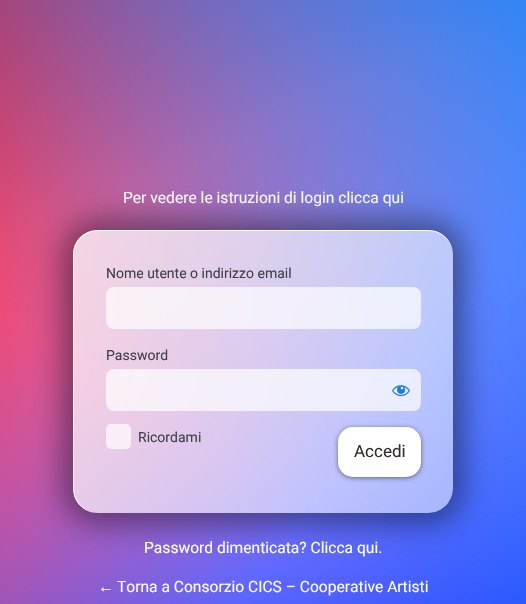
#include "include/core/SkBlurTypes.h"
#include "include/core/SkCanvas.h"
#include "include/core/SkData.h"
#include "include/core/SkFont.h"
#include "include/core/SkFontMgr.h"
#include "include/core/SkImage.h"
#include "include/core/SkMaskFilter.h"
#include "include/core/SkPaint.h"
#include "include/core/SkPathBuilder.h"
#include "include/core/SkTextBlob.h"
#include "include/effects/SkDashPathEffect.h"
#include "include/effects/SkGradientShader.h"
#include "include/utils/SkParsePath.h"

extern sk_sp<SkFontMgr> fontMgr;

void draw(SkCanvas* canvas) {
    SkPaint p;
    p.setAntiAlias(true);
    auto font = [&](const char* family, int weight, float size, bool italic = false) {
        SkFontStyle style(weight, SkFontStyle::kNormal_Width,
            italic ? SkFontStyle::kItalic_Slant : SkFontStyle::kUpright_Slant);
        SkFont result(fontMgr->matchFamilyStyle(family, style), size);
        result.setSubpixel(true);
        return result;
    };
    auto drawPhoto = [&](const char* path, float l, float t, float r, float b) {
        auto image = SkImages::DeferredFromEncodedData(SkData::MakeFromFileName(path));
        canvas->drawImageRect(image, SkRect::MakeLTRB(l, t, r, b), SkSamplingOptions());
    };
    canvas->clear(0xFFFFFFFF);
    {
        const SkColor colors[] = {0xFF3053FF, 0xFFF0A8FF};
        const float stops[] = {0, 0.71f};
        const SkPoint ends[] = {{419, 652}, {107, -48}};
        p.setShader(SkGradientShader::MakeLinear(ends, colors, stops, 2, SkTileMode::kClamp));
        p.setAlpha(255);
    }
    canvas->drawRect(SkRect::MakeLTRB(0, 0, 526, 604), p);
    {
        const SkColor colors[] = {0xCCFF0000, 0x00FF0000};
        const float stops[] = {0, 0.71f};
        const SkPoint ends[] = {{-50, 66}, {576, 538}};
        p.setShader(SkGradientShader::MakeLinear(ends, colors, stops, 2, SkTileMode::kClamp));
        p.setAlpha(255);
    }
    canvas->drawRect(SkRect::MakeLTRB(0, 0, 526, 604), p);
    {
        const SkColor colors[] = {0xCC0084FF, 0x000084FF};
        const float stops[] = {0, 0.71f};
        const SkPoint ends[] = {{503, -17}, {23, 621}};
        p.setShader(SkGradientShader::MakeLinear(ends, colors, stops, 2, SkTileMode::kClamp));
        p.setAlpha(255);
    }
    canvas->drawRect(SkRect::MakeLTRB(0, 0, 526, 604), p);
    auto font1 = font("Roboto", 400, 15.6f);
    p.setShader(nullptr);
    p.setColor(0xFFFFFFFF);
    canvas->drawString("Per vedere le istruzioni di login clicca qui", 123, 203, font1, p);
    canvas->save();
    canvas->clipPath(SkPathBuilder(SkPathFillType::kEvenOdd).moveTo(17, 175).lineTo(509, 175).lineTo(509, 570).lineTo(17, 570).close().moveTo(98, 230).lineTo(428, 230).cubicTo(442, 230, 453, 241, 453, 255).lineTo(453, 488).cubicTo(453, 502, 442, 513, 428, 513).lineTo(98, 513).cubicTo(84, 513, 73, 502, 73, 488).lineTo(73, 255).cubicTo(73, 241, 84, 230, 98, 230).close().detach(), true);
    p.setColor(0x6E000000);
    p.setMaskFilter(SkMaskFilter::MakeBlur(kNormal_SkBlurStyle, 15));
    canvas->drawRoundRect(SkRect::MakeLTRB(63, 221, 463, 524), 35, 35, p);
    p.setMaskFilter(nullptr);
    canvas->restore();
    canvas->save();
    canvas->clipPath(SkPathBuilder().moveTo(98, 230).lineTo(428, 230).cubicTo(442, 230, 453, 241, 453, 255).lineTo(453, 488).cubicTo(453, 502, 442, 513, 428, 513).lineTo(98, 513).cubicTo(84, 513, 73, 502, 73, 488).lineTo(73, 255).cubicTo(73, 241, 84, 230, 98, 230).close().detach(), true);
    {
        const SkColor colors[] = {0xBFFFFFFF, 0x80FFFFFF};
        const float stops[] = {0, 1};
        const SkPoint ends[] = {{60, 255}, {467, 489}};
        p.setShader(SkGradientShader::MakeLinear(ends, colors, stops, 2, SkTileMode::kClamp));
        p.setAlpha(255);
    }
    canvas->drawPath(SkPathBuilder().moveTo(74, 231).lineTo(453, 231).lineTo(453, 488).cubicTo(453, 502, 442, 513, 428, 513).lineTo(74, 513).close().detach(), p);
    canvas->restore();
    p.setShader(nullptr);
    p.setColor(0xFFFFFFFF);
    canvas->drawPath(SkPathBuilder(SkPathFillType::kEvenOdd).moveTo(98, 230).lineTo(428, 230).cubicTo(442, 230, 453, 241, 453, 255).lineTo(453, 488).cubicTo(453, 502, 442, 513, 428, 513).lineTo(98, 513).cubicTo(84, 513, 73, 502, 73, 488).lineTo(73, 255).cubicTo(73, 241, 84, 230, 98, 230).close().moveTo(98, 231).lineTo(428, 231).cubicTo(442, 231, 453, 242, 453, 255).lineTo(453, 488).cubicTo(453, 502, 442, 513, 428, 513).lineTo(98, 513).cubicTo(85, 513, 74, 502, 74, 488).lineTo(74, 255).cubicTo(74, 242, 85, 231, 98, 231).close().detach(), p);
    auto font2 = font("Roboto", 400, 14);
    p.setColor(0xFF3C434A);
    canvas->drawString("Nome utente o indirizzo email", 106, 278, font2, p);
    p.setColor(0xB0FFFFFF);
    canvas->drawRoundRect(SkRect::MakeLTRB(106, 287, 421, 329), 8, 8, p);
    p.setColor(0xFF3C434A);
    canvas->drawString("Password", 106, 360, font2, p);
    p.setColor(0xB0FFFFFF);
    canvas->drawRoundRect(SkRect::MakeLTRB(106, 369, 421, 411), 8, 8, p);
    drawPhoto("media/1.png", 392, 385, 410, 397);
    canvas->drawRoundRect(SkRect::MakeLTRB(106, 424, 131, 449), 5, 5, p);
    p.setColor(0xFF3C434A);
    canvas->drawString("Ricordami", 138, 442, font2, p);
    p.setColor(0x7A000000);
    p.setMaskFilter(SkMaskFilter::MakeBlur(kNormal_SkBlurStyle, 2.5f));
    canvas->drawRoundRect(SkRect::MakeLTRB(338, 428, 421, 478), 15, 15, p);
    p.setMaskFilter(nullptr);
    p.setColor(0xFFFFFFFF);
    canvas->drawRoundRect(SkRect::MakeLTRB(338, 427, 421, 477), 15, 15, p);
    auto font3 = font("Roboto", 400, 17);
    p.setColor(0xFF312F2C);
    canvas->drawString("Accedi", 354, 457, font3, p);
    p.setColor(0xFFFFFFFF);
    canvas->drawString("Password dimenticata? Clicca qui.", 144, 553, font1, p);
    auto font4 = font("Liberation Sans", 400, 15.6f);
    canvas->drawString("←", 98, 592, font4, p);
    canvas->drawString("Torna a Consorzio CICS – Cooperative Artisti", 117, 592, font1, p);
}
